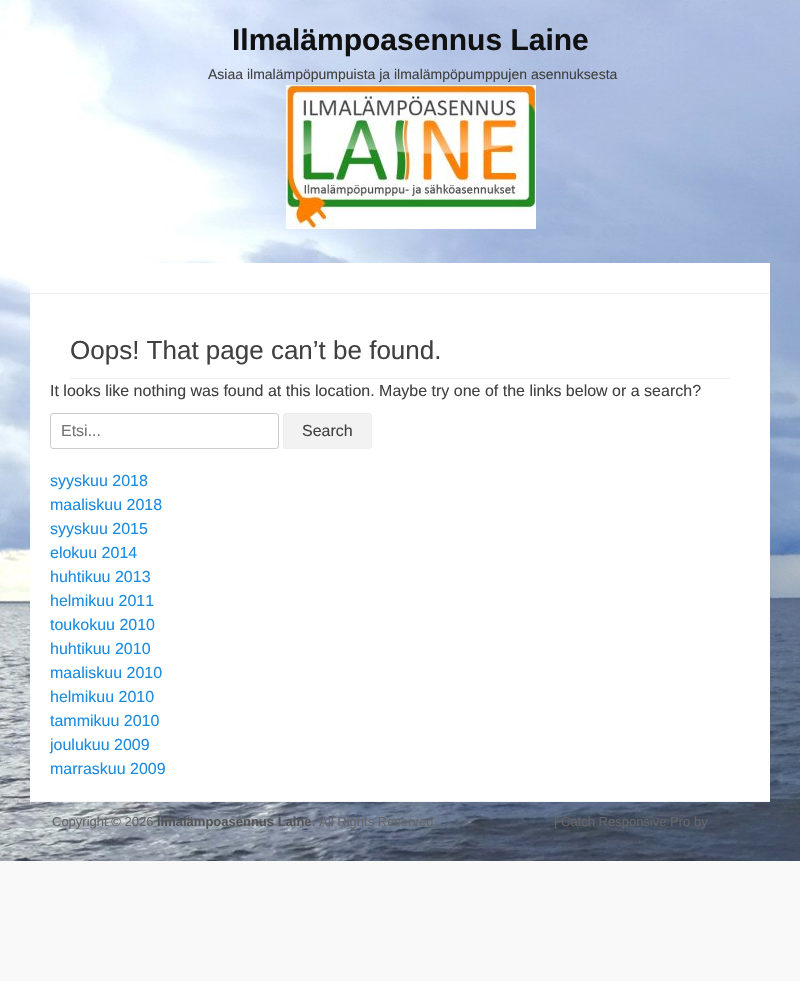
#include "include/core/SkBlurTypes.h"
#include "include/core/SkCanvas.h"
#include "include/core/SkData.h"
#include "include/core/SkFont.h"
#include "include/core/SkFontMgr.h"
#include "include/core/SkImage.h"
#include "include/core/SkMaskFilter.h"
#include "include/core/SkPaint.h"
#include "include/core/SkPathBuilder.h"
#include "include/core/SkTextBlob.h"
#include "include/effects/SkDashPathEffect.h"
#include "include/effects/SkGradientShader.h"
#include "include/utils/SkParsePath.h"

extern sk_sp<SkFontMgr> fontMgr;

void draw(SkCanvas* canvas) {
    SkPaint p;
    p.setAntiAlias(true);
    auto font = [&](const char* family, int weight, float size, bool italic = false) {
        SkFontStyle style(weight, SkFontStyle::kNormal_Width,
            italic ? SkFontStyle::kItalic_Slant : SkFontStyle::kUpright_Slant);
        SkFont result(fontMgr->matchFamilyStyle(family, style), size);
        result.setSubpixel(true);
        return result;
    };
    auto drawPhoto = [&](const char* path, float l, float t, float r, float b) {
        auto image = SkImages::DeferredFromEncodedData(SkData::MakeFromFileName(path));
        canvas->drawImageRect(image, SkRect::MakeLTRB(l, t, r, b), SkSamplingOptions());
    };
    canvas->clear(0xFFF9F9F9);
    drawPhoto("media/1.png", 0, 0, 800, 861);
    auto font1 = font("Liberation Sans", 700, 30);
    p.setColor(0xFF111111);
    canvas->drawString("Ilmalämpoasennus Laine", 232, 50, font1, p);
    auto font2 = font("Liberation Sans", 400, 14);
    p.setColor(0xFF404040);
    canvas->drawString("Asiaa ilmalämpöpumpuista ja ilmalämpöpumppujen asennuksesta", 208, 79, font2, p);
    drawPhoto("media/2.png", 286, 85, 536, 229);
    {
        const struct { float l, t, r, b; SkColor color; } items[] = {
            {30, 263, 770, 293, 0xFFFFFFFF},
            {30, 293, 770, 294, 0xFFEEEEEE},
            {30, 294, 770, 801, 0xFFFFFFFF},
            {70, 378, 730, 379, 0xFFEEEEEE},
        };
        for (auto [l, t, r, b, color] : items) {
            p.setColor(color);
            canvas->drawRect(SkRect::MakeLTRB(l, t, r, b), p);
        }
    }
    auto font3 = font("Liberation Sans", 400, 26);
    p.setColor(0xFF404040);
    canvas->drawString("Oops! That page can’t be found.", 70, 359, font3, p);
    auto font4 = font("Liberation Sans", 400, 16);
    canvas->drawString("It looks like nothing was found at this location. Maybe try one of the links below or a search?", 50, 396, font4, p);
    p.setStyle(SkPaint::kStroke_Style);
    p.setStrokeWidth(1);
    p.setColor(0xFFCCCCCC);
    canvas->drawRoundRect(SkRect::MakeLTRB(50.5f, 413.5f, 278.5f, 448.5f), 2.5f, 2.5f, p);
    p.setStyle(SkPaint::kFill_Style);
    p.setColor(0xFF757575);
    canvas->drawString("Etsi...", 61, 436, font4, p);
    p.setColor(0xFFF2F2F2);
    canvas->drawRoundRect(SkRect::MakeLTRB(283.5f, 413.5f, 371.5f, 448.5f), 2.5f, 2.5f, p);
    p.setStyle(SkPaint::kStroke_Style);
    p.setColor(0xFFEEEEEE);
    canvas->drawRoundRect(SkRect::MakeLTRB(283.5f, 413.5f, 371.5f, 448.5f), 2.5f, 2.5f, p);
    p.setStyle(SkPaint::kFill_Style);
    p.setColor(0xFF404040);
    canvas->drawString("Search", 302, 436, font4, p);
    p.setColor(0xFF1B8BE0);
    {
        const struct { const char* s; float x, y; } items[] = {
            {"syyskuu 2018", 50, 486},
            {"maaliskuu 2018", 50, 510},
            {"syyskuu 2015", 50, 534},
            {"elokuu 2014", 50, 558},
            {"huhtikuu 2013", 50, 582},
            {"helmikuu 2011", 50, 606},
            {"toukokuu 2010", 50, 630},
            {"huhtikuu 2010", 50, 654},
            {"maaliskuu 2010", 50, 678},
            {"helmikuu 2010", 50, 702},
            {"tammikuu 2010", 50, 726},
            {"joulukuu 2009", 50, 750},
            {"marraskuu 2009", 50, 774},
        };
        for (auto [s, x, y] : items) {
            canvas->drawString(s, x, y, font4, p);
        }
    }
    p.setColor(0xFFF4F4F4);
    canvas->drawRect(SkRect::MakeLTRB(30, 801, 770, 802), p);
    auto font5 = font("Liberation Sans", 400, 13);
    p.setColor(0xFF666666);
    canvas->drawString("Copyright © 2026", 52, 826, font5, p);
    auto font6 = font("Liberation Sans", 700, 13);
    p.setColor(0xFF555555);
    canvas->drawString("Ilmalämpoasennus Laine", 157, 826, font6, p);
    p.setColor(0xFF666666);
    canvas->drawString(". All Rights Reserved", 312, 826, font5, p);
    canvas->drawString("| Catch Responsive Pro by", 554, 826, font5, p);
}
